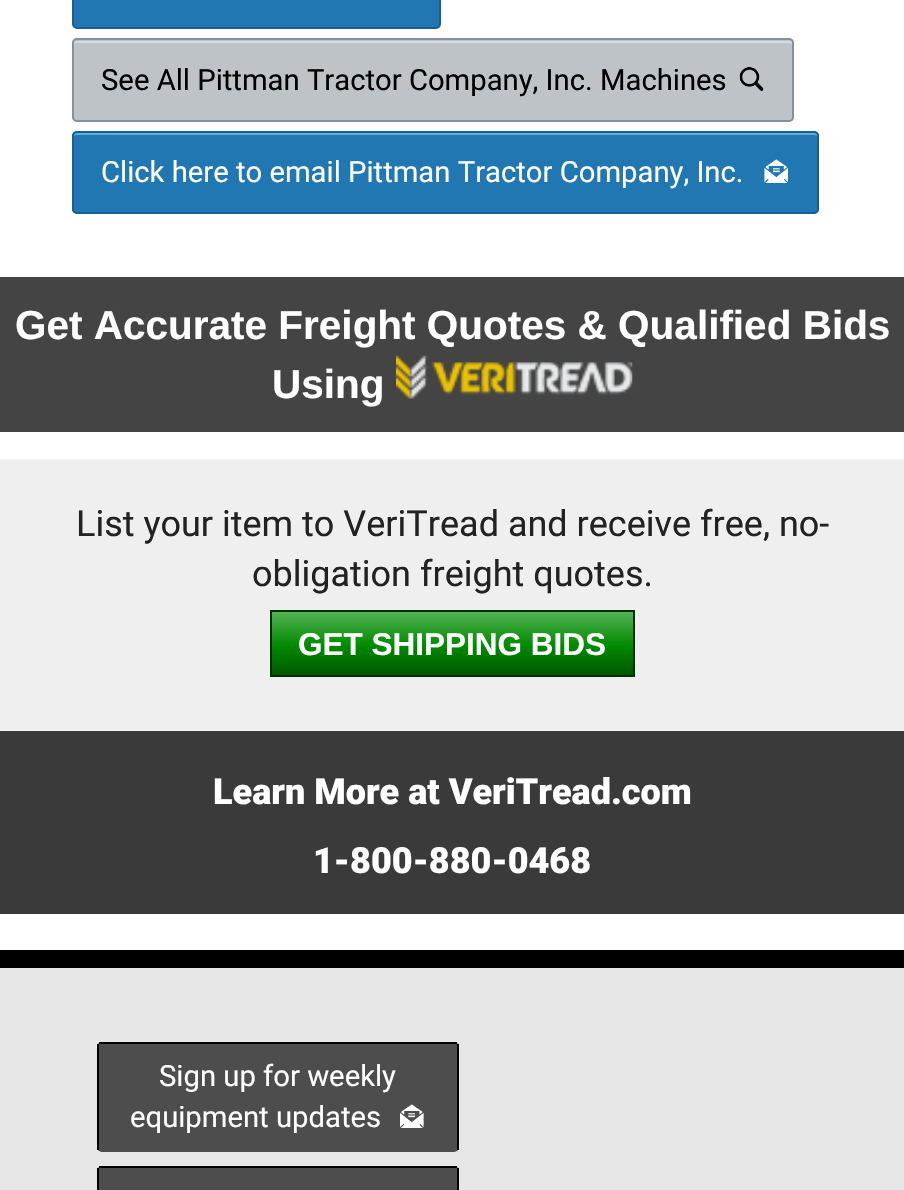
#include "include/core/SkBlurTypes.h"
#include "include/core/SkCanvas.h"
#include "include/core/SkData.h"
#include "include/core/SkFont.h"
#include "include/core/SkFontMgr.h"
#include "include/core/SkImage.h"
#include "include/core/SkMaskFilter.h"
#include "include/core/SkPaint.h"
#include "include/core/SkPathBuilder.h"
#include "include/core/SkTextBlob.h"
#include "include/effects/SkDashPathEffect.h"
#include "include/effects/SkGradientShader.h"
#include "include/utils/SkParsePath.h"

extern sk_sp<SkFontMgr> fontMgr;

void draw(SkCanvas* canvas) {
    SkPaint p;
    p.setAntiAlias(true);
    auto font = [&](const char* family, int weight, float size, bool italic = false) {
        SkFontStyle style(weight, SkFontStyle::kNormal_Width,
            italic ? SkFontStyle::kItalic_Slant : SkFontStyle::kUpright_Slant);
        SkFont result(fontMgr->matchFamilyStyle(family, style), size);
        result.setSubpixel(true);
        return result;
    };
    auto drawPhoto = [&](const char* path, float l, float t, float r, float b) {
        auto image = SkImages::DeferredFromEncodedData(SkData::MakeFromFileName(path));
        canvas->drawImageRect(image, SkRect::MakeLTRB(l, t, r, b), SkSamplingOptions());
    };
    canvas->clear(0xFFFFFFFF);
    p.setColor(0xFF2077B2);
    canvas->drawRoundRect(SkRect::MakeLTRB(73, -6, 440, 28), 4, 4, p);
    p.setStyle(SkPaint::kStroke_Style);
    p.setStrokeWidth(2);
    p.setColor(0xFF196090);
    canvas->drawRoundRect(SkRect::MakeLTRB(73, -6, 440, 28), 4, 4, p);
    p.setStyle(SkPaint::kFill_Style);
    p.setColor(0xFFBDC3C7);
    canvas->drawRoundRect(SkRect::MakeLTRB(72, 38, 794, 122), 5, 5, p);
    p.setColor(0xFFD9DCDE);
    canvas->drawPath(SkPathBuilder().moveTo(76, 43).lineTo(790, 43).cubicTo(791, 43, 792, 44, 792, 45).lineTo(792, 42).lineTo(790, 41).lineTo(75, 41).cubicTo(74, 42, 74, 44, 74, 45).cubicTo(74, 44, 75, 43, 76, 43).close().detach(), p);
    p.setStyle(SkPaint::kStroke_Style);
    p.setColor(0xFF869198);
    canvas->drawRoundRect(SkRect::MakeLTRB(73, 39, 793, 121), 4, 4, p);
    auto font1 = font("Roboto", 400, 29.25f);
    p.setStyle(SkPaint::kFill_Style);
    p.setColor(0xFF000000);
    canvas->drawString("See All Pittman Tractor Company, Inc. Machines", 101, 90, font1, p);
    drawPhoto("media/1.png", 739, 67, 764, 91);
    p.setColor(0xFF2077B2);
    canvas->drawRoundRect(SkRect::MakeLTRB(72, 131, 819, 214), 5, 5, p);
    p.setColor(0xFF5FAEE3);
    canvas->drawPath(SkPathBuilder().moveTo(76, 135).lineTo(814, 135).cubicTo(816, 135, 817, 136, 817, 137).lineTo(817, 134).lineTo(815, 133).lineTo(76, 133).cubicTo(74, 133, 74, 135, 74, 137).cubicTo(74, 136, 75, 135, 76, 135).close().detach(), p);
    p.setStyle(SkPaint::kStroke_Style);
    p.setColor(0xFF196090);
    canvas->drawRoundRect(SkRect::MakeLTRB(73, 132, 818, 213), 4, 4, p);
    p.setStyle(SkPaint::kFill_Style);
    p.setColor(0xFFFFFFFF);
    canvas->drawString("Click here to email Pittman Tractor Company, Inc.", 101, 182, font1, p);
    drawPhoto("media/2.png", 764, 159, 788, 183);
    p.setColor(0xFF444444);
    canvas->drawRect(SkRect::MakeLTRB(0, 277, 904, 432), p);
    auto font2 = font("Liberation Sans", 700, 40.5f);
    p.setColor(0xFFFFFFFF);
    canvas->drawString("Get Accurate Freight Quotes & Qualified Bids", 15, 339, font2, p);
    canvas->drawString("Using", 272, 398, font2, p);
    drawPhoto("media/3.png", 396, 355, 633, 399);
    p.setColor(0xFFEFEFEF);
    canvas->drawRect(SkRect::MakeLTRB(0, 459, 904, 731), p);
    auto font3 = font("Roboto", 400, 36);
    p.setColor(0xFF222222);
    canvas->drawString("List your item to VeriTread and receive free, no-", 76, 536, font3, p);
    canvas->drawString("obligation freight quotes.", 252, 586, font3, p);
    {
        const SkColor colors[] = {0xFF52B152, 0xFF008A00, 0xFF005700};
        const float stops[] = {0.01f, 0.54f, 1};
        const SkPoint ends[] = {{452, 612}, {452, 675}};
        p.setShader(SkGradientShader::MakeLinear(ends, colors, stops, 3, SkTileMode::kClamp));
        p.setAlpha(255);
    }
    canvas->drawRect(SkRect::MakeLTRB(272, 612, 633, 675), p);
    p.setStyle(SkPaint::kStroke_Style);
    p.setShader(nullptr);
    p.setColor(0xFF003300);
    canvas->drawRect(SkRect::MakeLTRB(271, 611, 634, 676), p);
    auto font4 = font("Liberation Sans", 700, 31.5f);
    p.setStyle(SkPaint::kFill_Style);
    p.setColor(0xFFFFFFFF);
    canvas->drawString("GET SHIPPING BIDS", 298, 655, font4, p);
    p.setColor(0xFF3A3A3A);
    canvas->drawRect(SkRect::MakeLTRB(0, 731, 904, 914), p);
    auto font5 = font("Roboto", 900, 36);
    p.setColor(0xFFFFFFFF);
    canvas->drawString("Learn More at VeriTread.com", 213, 804, font5, p);
    canvas->drawString("1-800-880-0468", 313, 873, font5, p);
    p.setColor(0xFFE6E6E6);
    canvas->drawRect(SkRect::MakeLTRB(0, 968, 904, 1190), p);
    p.setColor(0xFF000000);
    canvas->drawRect(SkRect::MakeLTRB(0, 950, 904, 968), p);
    p.setColor(0xFF4D4D4D);
    canvas->drawRoundRect(SkRect::MakeLTRB(97, 1042, 459, 1152), 5, 5, p);
    {
        const struct { float l, t, r, b; SkColor color; } items[] = {
            {99, 1042, 457, 1044, 0xFF000000},
            {457, 1044, 459, 1150, 0xFF000000},
            {97, 1044, 99, 1150, 0xFF000000},
        };
        for (auto [l, t, r, b, color] : items) {
            p.setColor(color);
            canvas->drawRect(SkRect::MakeLTRB(l, t, r, b), p);
        }
    }
    p.setColor(0xFFFFFFFF);
    canvas->drawString("Sign up for weekly", 159, 1086, font1, p);
    canvas->drawString("equipment updates", 130, 1127, font1, p);
    drawPhoto("media/4.png", 400, 1104, 424, 1128);
    p.setColor(0xFF4D4D4D);
    canvas->drawRoundRect(SkRect::MakeLTRB(97, 1166, 459, 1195), 5, 5, p);
    {
        const struct { float l, t, r, b; SkColor color; } items[] = {
            {99, 1166, 457, 1168, 0xFF000000},
            {457, 1168, 459, 1190, 0xFF000000},
            {97, 1168, 99, 1190, 0xFF000000},
        };
        for (auto [l, t, r, b, color] : items) {
            p.setColor(color);
            canvas->drawRect(SkRect::MakeLTRB(l, t, r, b), p);
        }
    }
}
